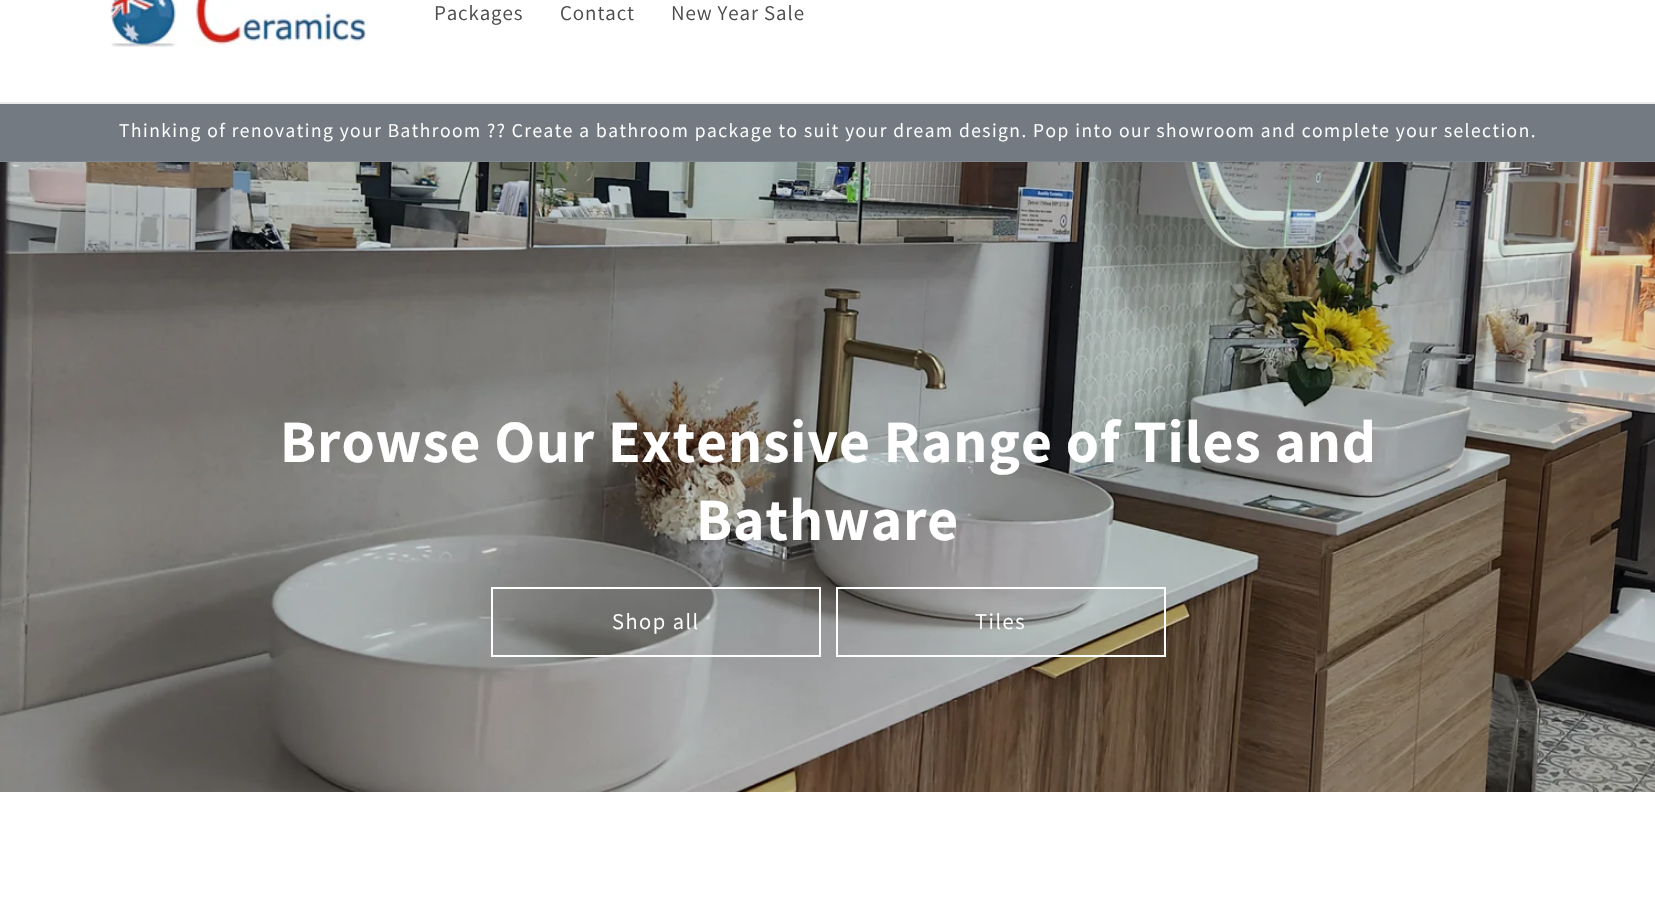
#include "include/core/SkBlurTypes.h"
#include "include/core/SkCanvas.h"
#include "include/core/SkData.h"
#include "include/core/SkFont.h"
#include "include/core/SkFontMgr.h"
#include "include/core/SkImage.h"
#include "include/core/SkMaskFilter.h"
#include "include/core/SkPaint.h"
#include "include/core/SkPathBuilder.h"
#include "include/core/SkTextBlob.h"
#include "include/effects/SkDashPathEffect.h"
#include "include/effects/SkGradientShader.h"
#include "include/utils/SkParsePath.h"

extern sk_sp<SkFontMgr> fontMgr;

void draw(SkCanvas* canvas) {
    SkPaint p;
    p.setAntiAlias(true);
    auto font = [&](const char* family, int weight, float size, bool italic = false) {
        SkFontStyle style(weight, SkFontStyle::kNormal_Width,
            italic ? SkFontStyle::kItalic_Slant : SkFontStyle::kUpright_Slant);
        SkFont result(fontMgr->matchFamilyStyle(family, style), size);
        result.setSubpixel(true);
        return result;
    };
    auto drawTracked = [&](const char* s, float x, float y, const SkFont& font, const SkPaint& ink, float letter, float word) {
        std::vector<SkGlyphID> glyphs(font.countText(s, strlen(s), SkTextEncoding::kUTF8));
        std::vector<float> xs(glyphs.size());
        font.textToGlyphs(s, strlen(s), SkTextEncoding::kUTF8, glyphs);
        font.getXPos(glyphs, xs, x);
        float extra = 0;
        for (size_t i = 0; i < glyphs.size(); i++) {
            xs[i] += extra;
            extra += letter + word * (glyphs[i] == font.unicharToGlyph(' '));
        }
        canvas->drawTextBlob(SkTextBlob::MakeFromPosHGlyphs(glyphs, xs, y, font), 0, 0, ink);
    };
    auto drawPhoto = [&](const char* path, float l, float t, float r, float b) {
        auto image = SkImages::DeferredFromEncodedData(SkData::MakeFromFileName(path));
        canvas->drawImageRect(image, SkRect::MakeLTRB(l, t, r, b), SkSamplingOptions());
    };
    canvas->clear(0xFFFFFFFF);
    p.setColor(0xFFECECEC);
    canvas->drawRect(SkRect::MakeLTRB(0, 102, 1655, 104), p);
    drawPhoto("media/1.png", 110, 0, 369, 47);
    auto font1 = font("Assistant", 400, 21);
    p.setColor(0xFF4D4D4D);
    {
        const struct { const char* s; float x, y; } items[] = {
            {"Packages", 434, 20},
            {"Contact", 560, 20},
            {"New Year Sale", 671, 20},
        };
        for (auto [s, x, y] : items) {
            drawTracked(s, x, y, font1, p, 0.9f, 0);
        }
    }
    p.setColor(0xFF737A81);
    canvas->drawRect(SkRect::MakeLTRB(0, 104, 1655, 161), p);
    p.setColor(0xFF7E858B);
    canvas->drawRect(SkRect::MakeLTRB(0, 161, 1655, 162), p);
    auto font2 = font("Assistant", 400, 19.5f);
    p.setColor(0xFFFFFFFF);
    drawTracked("Thinking of renovating your Bathroom ?\077 Create a bathroom package to suit your dream design. Pop into our showroom and complete your selection.", 119, 137, font2, p, 1.5f, 0);
    drawPhoto("media/2.png", 0, 162, 1655, 792);
    auto font3 = font("Assistant", 700, 60);
    drawTracked("Browse Our Extensive Range of Tiles and", 280, 462, font3, p, 0.9f, 0);
    drawTracked("Bathware", 696, 540, font3, p, 0.9f, 0);
    p.setStyle(SkPaint::kStroke_Style);
    p.setStrokeWidth(2);
    canvas->drawRect(SkRect::MakeLTRB(492, 588, 820, 656), p);
    auto font4 = font("Assistant", 400, 22.5f);
    p.setStyle(SkPaint::kFill_Style);
    drawTracked("Shop all", 612, 629, font4, p, 1.5f, 0);
    p.setStyle(SkPaint::kStroke_Style);
    canvas->drawRect(SkRect::MakeLTRB(837, 588, 1165, 656), p);
    p.setStyle(SkPaint::kFill_Style);
    drawTracked("Tiles", 975, 629, font4, p, 1.5f, 0);
}
